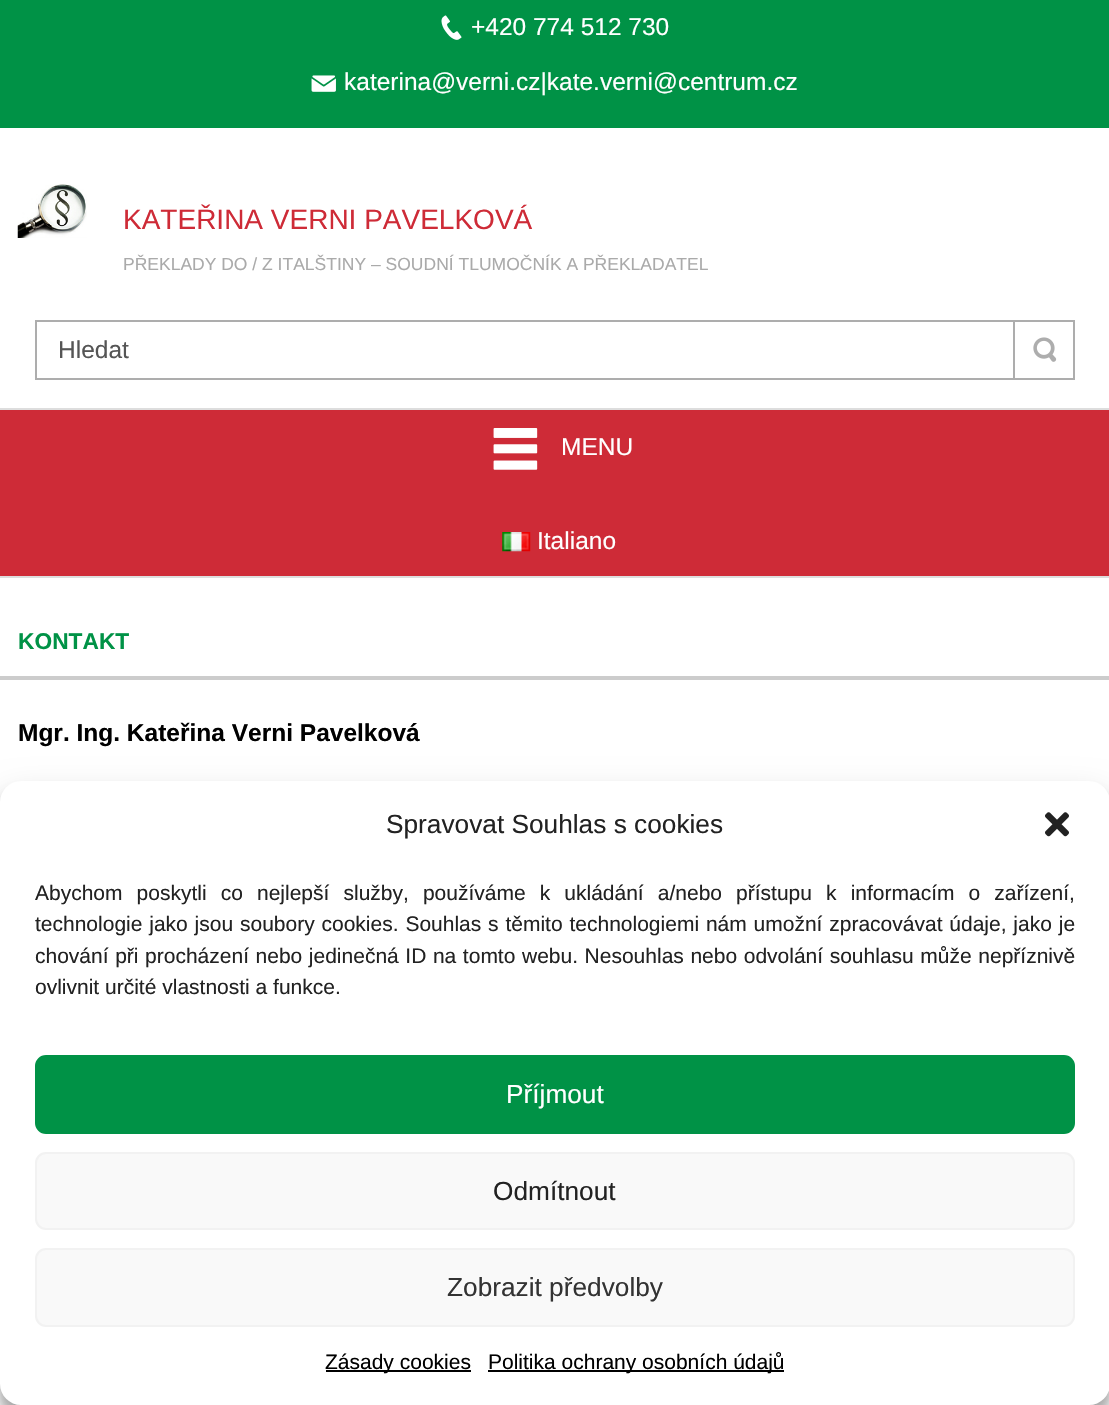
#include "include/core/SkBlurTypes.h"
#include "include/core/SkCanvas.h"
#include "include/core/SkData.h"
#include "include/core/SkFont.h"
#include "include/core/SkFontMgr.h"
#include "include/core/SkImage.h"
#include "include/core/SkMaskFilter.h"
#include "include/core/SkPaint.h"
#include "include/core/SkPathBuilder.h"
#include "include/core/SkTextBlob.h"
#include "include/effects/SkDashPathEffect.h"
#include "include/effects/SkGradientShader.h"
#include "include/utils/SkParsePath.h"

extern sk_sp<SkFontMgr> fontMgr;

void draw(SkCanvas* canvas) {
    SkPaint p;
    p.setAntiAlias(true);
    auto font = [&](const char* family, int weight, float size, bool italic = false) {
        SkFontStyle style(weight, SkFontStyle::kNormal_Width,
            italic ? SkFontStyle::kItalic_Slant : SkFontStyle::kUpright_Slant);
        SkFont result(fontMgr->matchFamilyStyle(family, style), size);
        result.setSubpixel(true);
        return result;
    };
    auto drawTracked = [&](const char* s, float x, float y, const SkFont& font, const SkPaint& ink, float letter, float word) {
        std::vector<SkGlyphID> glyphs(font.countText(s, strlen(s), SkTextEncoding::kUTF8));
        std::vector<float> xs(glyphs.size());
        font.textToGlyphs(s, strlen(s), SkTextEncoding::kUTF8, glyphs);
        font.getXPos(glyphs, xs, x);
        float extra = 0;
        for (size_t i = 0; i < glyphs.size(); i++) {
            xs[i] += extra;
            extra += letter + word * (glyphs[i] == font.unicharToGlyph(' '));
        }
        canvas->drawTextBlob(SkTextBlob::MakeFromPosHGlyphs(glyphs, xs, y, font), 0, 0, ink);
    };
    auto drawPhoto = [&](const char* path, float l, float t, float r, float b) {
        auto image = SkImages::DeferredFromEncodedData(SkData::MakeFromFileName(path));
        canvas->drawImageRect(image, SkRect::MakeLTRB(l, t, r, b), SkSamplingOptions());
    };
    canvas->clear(0xFFFFFFFF);
    p.setColor(0xFF009246);
    canvas->drawRect(SkRect::MakeLTRB(0, 0, 1109, 128), p);
    drawPhoto("media/1.png", 441, 15, 462, 40);
    auto font1 = font("Liberation Sans", 400, 24.5f);
    p.setColor(0xFFFFFFFF);
    canvas->drawString("+420 774 512 730", 471, 35, font1, p);
    drawPhoto("media/2.png", 311, 75, 336, 92);
    canvas->drawString("katerina@verni.cz|kate.verni@centrum.cz", 344, 90, font1, p);
    drawPhoto("media/3.png", 17, 184, 87, 238);
    auto font2 = font("Liberation Sans", 400, 28);
    p.setColor(0xFFCE2B37);
    canvas->drawString("KATEŘINA VERNI PAVELKOVÁ", 123, 229, font2, p);
    auto font3 = font("Liberation Sans", 400, 17.5f);
    p.setColor(0xFFAAAAAA);
    canvas->drawString("PŘEKLADY DO / Z ITALŠTINY – SOUDNÍ TLUMOČNÍK A PŘEKLADATEL", 123, 270, font3, p);
    p.setStyle(SkPaint::kStroke_Style);
    p.setStrokeWidth(2);
    p.setColor(0xFFADADAD);
    canvas->drawRect(SkRect::MakeLTRB(36, 321, 1074, 379), p);
    p.setStyle(SkPaint::kFill_Style);
    p.setColor(0xFF555555);
    canvas->drawString("Hledat", 58, 358, font1, p);
    p.setColor(0xFFADADAD);
    canvas->drawRect(SkRect::MakeLTRB(1013, 320, 1015, 380), p);
    drawPhoto("media/4.png", 1033, 337, 1057, 362);
    {
        const struct { float l, t, r, b; SkColor color; } items[] = {
            {0, 410, 1109, 576, 0xFFCE2B37},
            {0, 408, 1109, 410, 0xFFDDDDDD},
            {0, 576, 1109, 578, 0xFFDDDDDD},
        };
        for (auto [l, t, r, b, color] : items) {
            p.setColor(color);
            canvas->drawRect(SkRect::MakeLTRB(l, t, r, b), p);
        }
    }
    drawPhoto("media/5.png", 493, 428, 538, 470);
    p.setColor(0xFFFFFFFF);
    canvas->drawString("MENU", 561, 455, font1, p);
    drawPhoto("media/6.png", 502, 532, 531, 552);
    canvas->drawString("Italiano", 537, 549, font1, p);
    p.setColor(0xFFCCCCCC);
    canvas->drawRect(SkRect::MakeLTRB(0, 676, 1109, 680), p);
    auto font4 = font("Liberation Sans", 700, 22.75f);
    p.setColor(0xFF009246);
    canvas->drawString("KONTAKT", 18, 649, font4, p);
    auto font5 = font("Liberation Sans", 700, 24.5f);
    p.setColor(0xFF000000);
    canvas->drawString("Mgr. Ing. Kateřina Verni Pavelková", 18, 741, font5, p);
    p.setColor(0x3B000000);
    p.setMaskFilter(SkMaskFilter::MakeBlur(kNormal_SkBlurStyle, 5));
    canvas->drawRoundRect(SkRect::MakeLTRB(0, 791, 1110, 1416), 21, 21, p);
    p.setMaskFilter(nullptr);
    p.setColor(0x30000000);
    p.setMaskFilter(SkMaskFilter::MakeBlur(kNormal_SkBlurStyle, 17.5f));
    canvas->drawRoundRect(SkRect::MakeLTRB(0, 798, 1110, 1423), 21, 21, p);
    p.setMaskFilter(nullptr);
    p.setColor(0xFFFFFFFF);
    canvas->drawRoundRect(SkRect::MakeLTRB(0, 781, 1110, 1405), 21, 21, p);
    auto font6 = font("Liberation Sans", 400, 26.25f);
    p.setColor(0xFF222222);
    canvas->drawString("Spravovat Souhlas s cookies", 386, 833, font6, p);
    drawPhoto("media/7.png", 1045, 812, 1069, 837);
    auto font7 = font("Liberation Sans", 400, 21);
    drawTracked("Abychom poskytli co nejlepší služby, používáme k ukládání a/nebo přístupu k informacím o zařízení,", 35, 900, font7, p, 0, 8.25f);
    drawTracked("technologie jako jsou soubory cookies. Souhlas s těmito technologiemi nám umožní zpracovávat údaje, jako je", 35, 931, font7, p, 0, 1);
    drawTracked("chování při procházení nebo jedinečná ID na tomto webu. Nesouhlas nebo odvolání souhlasu může nepříznivě", 35, 963, font7, p, 0, 0.75f);
    canvas->drawString("ovlivnit určité vlastnosti a funkce.", 35, 994, font7, p);
    p.setColor(0xFF009246);
    canvas->drawRoundRect(SkRect::MakeLTRB(36, 1056, 1074, 1133), 10, 10, p);
    p.setStyle(SkPaint::kStroke_Style);
    canvas->drawRoundRect(SkRect::MakeLTRB(36, 1056, 1074, 1133), 10, 10, p);
    p.setStyle(SkPaint::kFill_Style);
    p.setColor(0xFFFFFFFF);
    canvas->drawString("Příjmout", 506, 1103, font6, p);
    p.setColor(0xFFF9F9F9);
    canvas->drawRoundRect(SkRect::MakeLTRB(36, 1153, 1074, 1229), 10, 10, p);
    p.setStyle(SkPaint::kStroke_Style);
    p.setColor(0xFFF2F2F2);
    canvas->drawRoundRect(SkRect::MakeLTRB(36, 1153, 1074, 1229), 10, 10, p);
    p.setStyle(SkPaint::kFill_Style);
    p.setColor(0xFF222222);
    canvas->drawString("Odmítnout", 493, 1200, font6, p);
    p.setColor(0xFFF9F9F9);
    canvas->drawRoundRect(SkRect::MakeLTRB(36, 1249, 1074, 1326), 10, 10, p);
    p.setStyle(SkPaint::kStroke_Style);
    p.setColor(0xFFF2F2F2);
    canvas->drawRoundRect(SkRect::MakeLTRB(36, 1249, 1074, 1326), 10, 10, p);
    p.setStyle(SkPaint::kFill_Style);
    p.setColor(0xFF333333);
    canvas->drawString("Zobrazit předvolby", 447, 1296, font6, p);
    p.setColor(0xFF000000);
    canvas->drawRect(SkRect::MakeLTRB(326, 1370, 471, 1372), p);
    canvas->drawString("Zásady cookies", 325, 1369, font7, p);
    canvas->drawRect(SkRect::MakeLTRB(488, 1370, 784, 1372), p);
    canvas->drawString("Politika ochrany osobních údajů", 488, 1369, font7, p);
}
